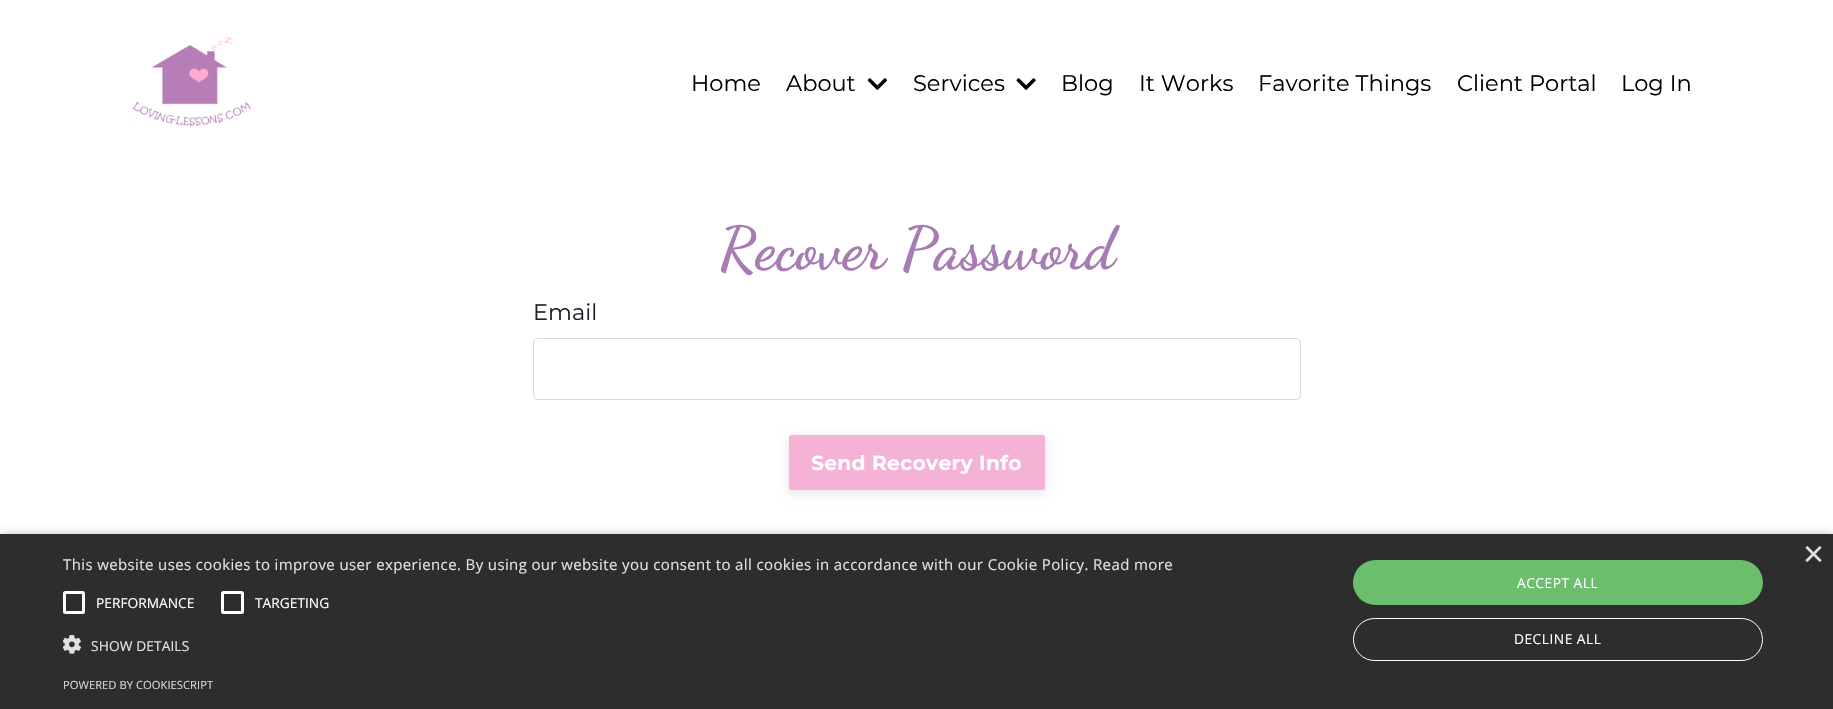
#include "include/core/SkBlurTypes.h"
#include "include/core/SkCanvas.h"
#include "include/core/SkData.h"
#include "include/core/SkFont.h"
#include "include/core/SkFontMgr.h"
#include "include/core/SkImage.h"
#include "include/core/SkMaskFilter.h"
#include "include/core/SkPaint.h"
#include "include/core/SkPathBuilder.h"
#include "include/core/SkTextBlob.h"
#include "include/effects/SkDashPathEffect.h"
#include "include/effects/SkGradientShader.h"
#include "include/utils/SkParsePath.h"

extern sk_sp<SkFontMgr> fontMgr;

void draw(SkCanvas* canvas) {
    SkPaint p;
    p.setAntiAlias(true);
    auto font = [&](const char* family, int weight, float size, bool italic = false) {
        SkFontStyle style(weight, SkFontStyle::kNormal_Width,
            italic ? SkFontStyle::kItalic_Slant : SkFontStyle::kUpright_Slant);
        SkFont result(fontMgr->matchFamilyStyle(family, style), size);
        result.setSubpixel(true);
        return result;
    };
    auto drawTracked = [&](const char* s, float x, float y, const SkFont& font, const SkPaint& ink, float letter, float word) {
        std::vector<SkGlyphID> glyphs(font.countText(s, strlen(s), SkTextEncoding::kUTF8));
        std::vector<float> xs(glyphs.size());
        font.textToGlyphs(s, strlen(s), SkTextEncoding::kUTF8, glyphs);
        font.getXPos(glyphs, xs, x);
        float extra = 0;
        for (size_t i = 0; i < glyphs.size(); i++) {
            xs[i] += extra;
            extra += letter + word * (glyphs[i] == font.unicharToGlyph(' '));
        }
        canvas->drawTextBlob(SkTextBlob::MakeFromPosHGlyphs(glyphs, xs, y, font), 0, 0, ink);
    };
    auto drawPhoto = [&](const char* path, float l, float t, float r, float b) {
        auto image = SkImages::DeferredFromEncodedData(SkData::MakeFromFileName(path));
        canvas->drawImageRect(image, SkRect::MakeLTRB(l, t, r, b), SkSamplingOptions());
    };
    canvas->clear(0xFFFFFFFF);
    drawPhoto("media/1.png", 132, 37, 251, 127);
    auto font1 = font("Montserrat", 400, 22.5f);
    p.setColor(0xFF000000);
    canvas->drawString("Home", 691, 91, font1, p);
    canvas->drawString("About", 786, 91, font1, p);
    drawPhoto("media/2.png", 867, 78, 887, 90);
    canvas->drawString("Services", 913, 91, font1, p);
    drawPhoto("media/3.png", 1016, 78, 1036, 90);
    {
        const struct { const char* s; float x, y; } items[] = {
            {"Blog", 1061, 91},
            {"It Works", 1139, 91},
            {"Favorite Things", 1258, 91},
            {"Client Portal", 1457, 91},
            {"Log In", 1621, 91},
        };
        for (auto [s, x, y] : items) {
            canvas->drawString(s, x, y, font1, p);
        }
    }
    auto font2 = font("Dancing Script", 700, 60);
    p.setColor(0xFFA77CB5);
    canvas->drawString("Recover Password", 719, 268, font2, p);
    p.setColor(0xFF1A2129);
    canvas->drawString("Email", 533, 320, font1, p);
    p.setStyle(SkPaint::kStroke_Style);
    p.setStrokeWidth(1);
    p.setColor(0xFFD9D9D9);
    canvas->drawRoundRect(SkRect::MakeLTRB(533.5f, 338.5f, 1300.5f, 399.5f), 4.5f, 4.5f, p);
    p.setStyle(SkPaint::kFill_Style);
    p.setColor(0x1A000000);
    p.setMaskFilter(SkMaskFilter::MakeBlur(kNormal_SkBlurStyle, 6));
    canvas->drawRoundRect(SkRect::MakeLTRB(789, 438, 1045, 493), 2.5f, 2.5f, p);
    p.setMaskFilter(nullptr);
    p.setColor(0xFFF4B2D5);
    canvas->drawRoundRect(SkRect::MakeLTRB(790.5f, 436.5f, 1043.5f, 488.5f), 1, 1, p);
    p.setStyle(SkPaint::kStroke_Style);
    p.setStrokeWidth(3);
    canvas->drawRoundRect(SkRect::MakeLTRB(790.5f, 436.5f, 1043.5f, 488.5f), 1, 1, p);
    auto font3 = font("Montserrat", 700, 20.25f);
    p.setStyle(SkPaint::kFill_Style);
    p.setColor(0xFFFFFFFF);
    drawTracked("Send Recovery Info", 811, 470, font3, p, 0.3f, 0);
    p.setColor(0x59000000);
    p.setMaskFilter(SkMaskFilter::MakeBlur(kNormal_SkBlurStyle, 5));
    canvas->drawRect(SkRect::MakeLTRB(1, 536, 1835, 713), p);
    p.setMaskFilter(nullptr);
    p.setColor(0xFF2D2D2D);
    canvas->drawRect(SkRect::MakeLTRB(0, 534, 1833, 709), p);
    auto font4 = font("Liberation Sans", 400, 36);
    p.setColor(0xFFE0E0E0);
    canvas->drawString("×", 1803, 566, font4, p);
    auto font5 = font("Open Sans", 400, 15);
    drawTracked("This website uses cookies to improve user experience. By using our website you consent to all cookies in accordance with our Cookie Policy. Read more", 63, 570, font5, p, 0.38f, 0);
    p.setStyle(SkPaint::kStroke_Style);
    p.setColor(0xFFFFFFFF);
    canvas->drawRoundRect(SkRect::MakeLTRB(64.5f, 592.5f, 83.5f, 612.5f), 1, 1, p);
    auto font6 = font("Open Sans", 400, 13.75f);
    p.setStyle(SkPaint::kFill_Style);
    canvas->drawString("PERFORMANCE", 96, 608, font6, p);
    p.setStyle(SkPaint::kStroke_Style);
    canvas->drawRoundRect(SkRect::MakeLTRB(222.5f, 592.5f, 242.5f, 612.5f), 1, 1, p);
    p.setStyle(SkPaint::kFill_Style);
    canvas->drawString("TARGETING", 255, 608, font6, p);
    drawPhoto("media/4.png", 63, 635, 81, 654);
    p.setColor(0xFFE0E0E0);
    drawTracked("SHOW DETAILS", 91, 651, font6, p, 0.1f, 0);
    p.setColor(0xFF6BBE6B);
    canvas->drawRoundRect(SkRect::MakeLTRB(1353, 560, 1763, 605), 22.5f, 22.5f, p);
    p.setColor(0xFFFFFFFF);
    drawTracked("ACCEPT ALL", 1517, 588, font6, p, 0.5f, 0);
    p.setStyle(SkPaint::kStroke_Style);
    p.setStrokeWidth(1);
    canvas->drawRoundRect(SkRect::MakeLTRB(1353.5f, 618.5f, 1762.5f, 660.5f), 21, 21, p);
    p.setStyle(SkPaint::kFill_Style);
    drawTracked("DECLINE ALL", 1514, 644, font6, p, 0.5f, 0);
    auto font7 = font("Open Sans", 400, 11.25f);
    p.setColor(0xFFD5D5D5);
    canvas->drawString("POWERED BY COOKIESCRIPT", 63, 689, font7, p);
}
